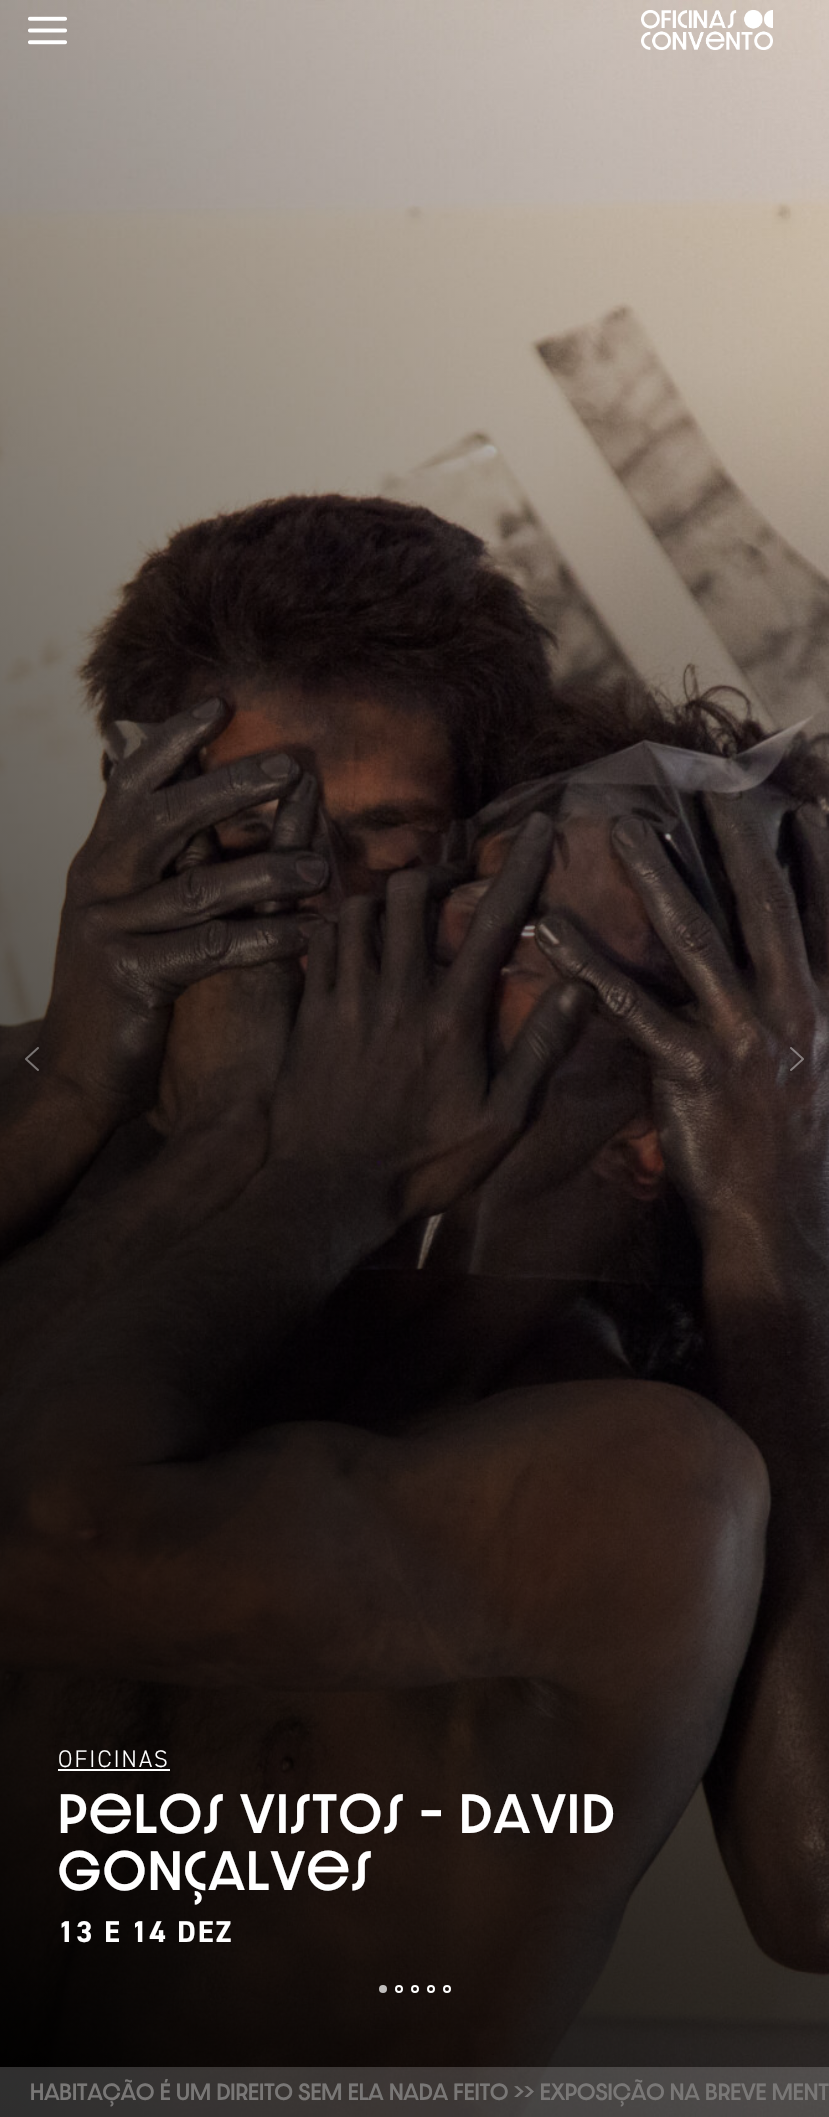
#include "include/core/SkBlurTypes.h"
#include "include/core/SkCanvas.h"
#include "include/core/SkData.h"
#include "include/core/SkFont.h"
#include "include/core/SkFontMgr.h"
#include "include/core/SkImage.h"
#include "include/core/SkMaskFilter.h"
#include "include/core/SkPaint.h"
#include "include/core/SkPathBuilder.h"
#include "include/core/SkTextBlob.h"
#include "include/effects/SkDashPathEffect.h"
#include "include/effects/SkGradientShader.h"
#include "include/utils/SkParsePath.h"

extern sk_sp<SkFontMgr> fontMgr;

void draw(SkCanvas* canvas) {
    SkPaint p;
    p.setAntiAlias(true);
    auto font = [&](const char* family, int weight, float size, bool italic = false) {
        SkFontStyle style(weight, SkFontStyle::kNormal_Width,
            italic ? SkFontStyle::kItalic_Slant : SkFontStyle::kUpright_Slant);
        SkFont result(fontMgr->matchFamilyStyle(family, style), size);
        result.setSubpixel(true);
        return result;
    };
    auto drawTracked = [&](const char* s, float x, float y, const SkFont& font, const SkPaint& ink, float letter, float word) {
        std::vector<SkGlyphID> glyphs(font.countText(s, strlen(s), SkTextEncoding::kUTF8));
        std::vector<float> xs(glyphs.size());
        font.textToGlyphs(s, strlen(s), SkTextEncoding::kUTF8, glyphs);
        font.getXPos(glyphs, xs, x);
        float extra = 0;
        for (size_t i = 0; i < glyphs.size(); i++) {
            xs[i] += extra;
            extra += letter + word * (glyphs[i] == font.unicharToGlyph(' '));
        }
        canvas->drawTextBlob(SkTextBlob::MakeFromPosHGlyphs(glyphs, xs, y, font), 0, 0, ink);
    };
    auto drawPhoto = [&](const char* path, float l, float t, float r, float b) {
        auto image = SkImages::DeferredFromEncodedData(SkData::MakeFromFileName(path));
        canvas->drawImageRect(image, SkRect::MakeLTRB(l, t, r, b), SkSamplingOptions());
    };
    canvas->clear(0xFFFFFFFF);
    drawPhoto("media/5.png", 0, 0, 829, 2117);
    drawPhoto("media/1.png", 28, 16, 67, 45);
    drawPhoto("media/2.png", 641, 10, 773, 50);
    drawPhoto("media/3.png", 25, 1047, 39, 1071);
    drawPhoto("media/4.png", 790, 1047, 804, 1071);
    auto font1 = font("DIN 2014", 300, 24);
    p.setColor(0xFFFFFFFF);
    drawTracked("OFICINAS", 58, 1767, font1, p, 2, 0);
    canvas->drawRect(SkRect::MakeLTRB(58, 1769, 170, 1771), p);
    auto font2 = font("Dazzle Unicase", 500, 47);
    drawTracked("Pelos vistos – David", 58, 1833, font2, p, 2, 0);
    drawTracked("Gonçalves", 58, 1890, font2, p, 2, 0);
    auto font3 = font("DIN 2014", 700, 30);
    drawTracked("13 E 14 DEZ", 58, 1942, font3, p, 2, 0);
    p.setColor(0xFFC0BEBD);
    canvas->drawCircle(383, 1989, 4, p);
    p.setStyle(SkPaint::kStroke_Style);
    p.setStrokeWidth(2);
    p.setColor(0xFFFFFFFF);
    canvas->drawCircle(399, 1989, 3, p);
    canvas->drawCircle(415, 1989, 3, p);
    canvas->drawCircle(431, 1989, 3, p);
    canvas->drawCircle(447, 1989, 3, p);
    p.setStyle(SkPaint::kFill_Style);
    p.setColor(0x2EFFFFFF);
    canvas->drawRect(SkRect::MakeLTRB(0, 2067, 829, 2117), p);
    auto font4 = font("Dazzle Unicase", 500, 20);
    p.setColor(0xFF797776);
    canvas->drawString("HABITAÇÃO É UM DIREITO SEM ELA NADA FEITO >> EXPOSIÇÃO NA BREVE MENT", 30, 2100, font4, p);
}
